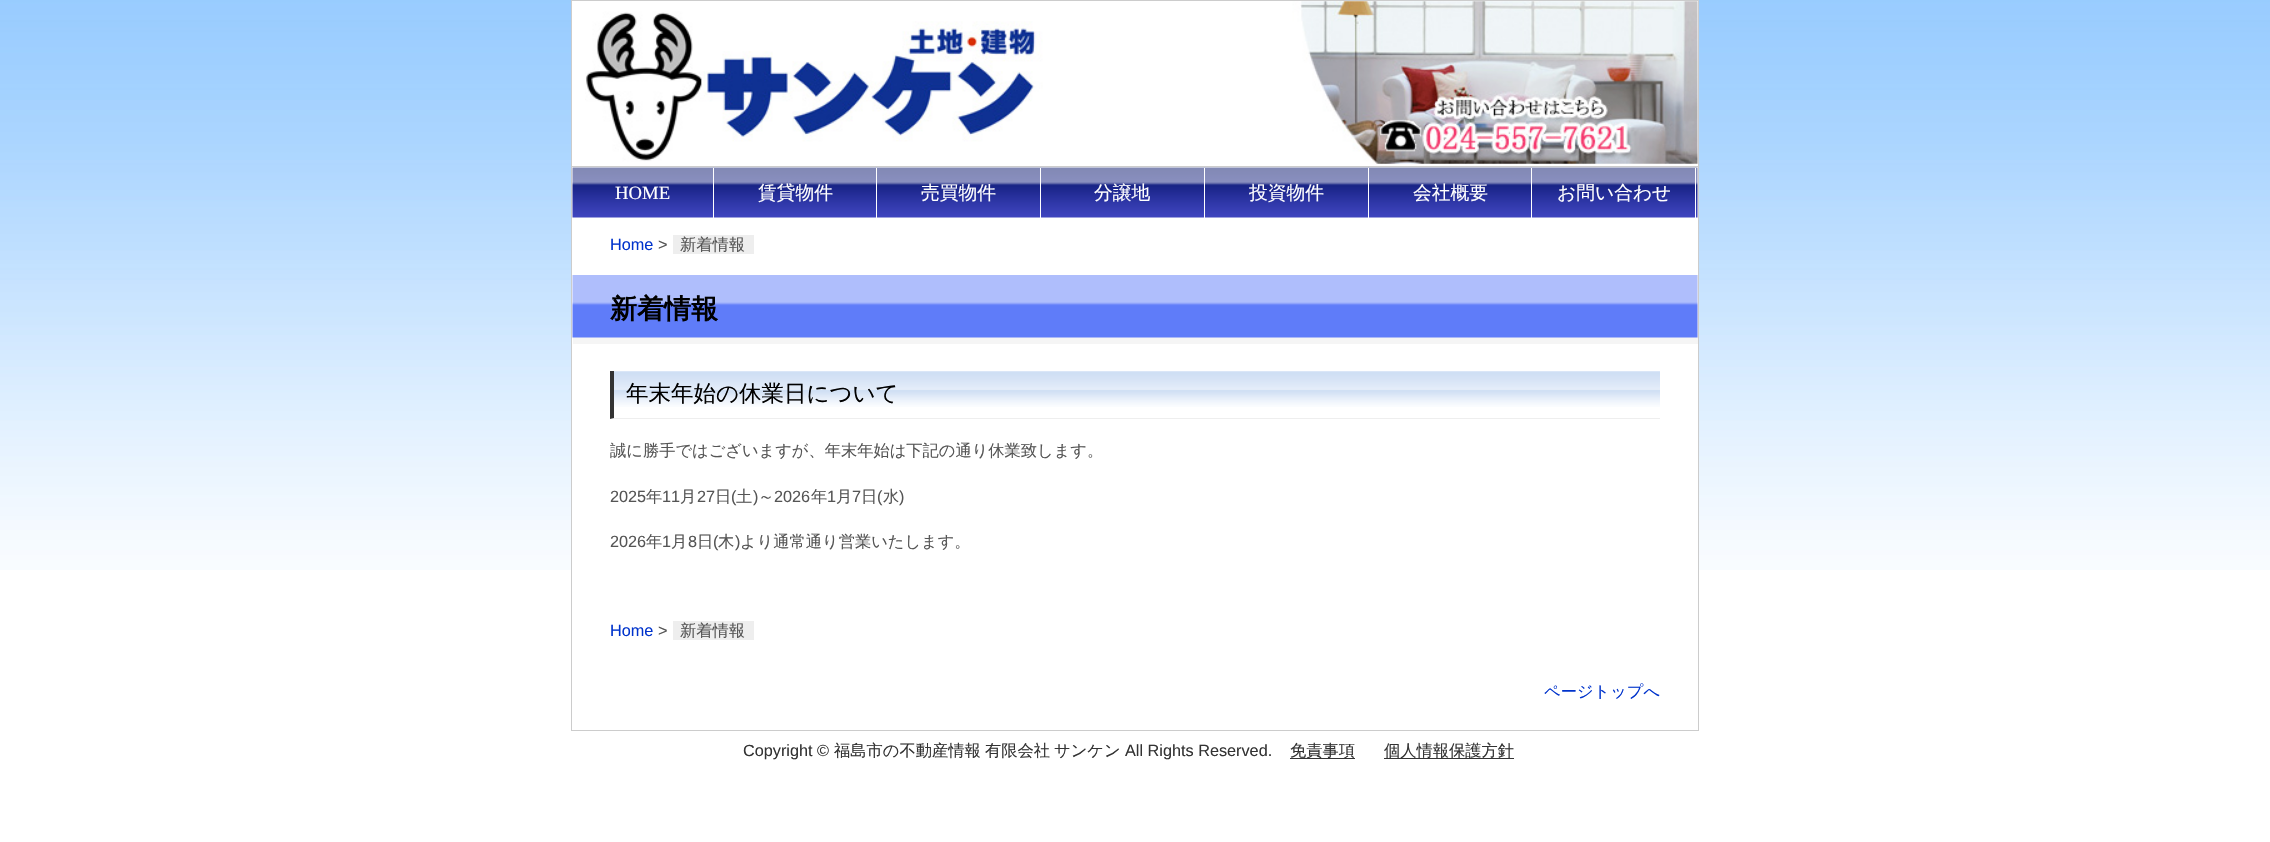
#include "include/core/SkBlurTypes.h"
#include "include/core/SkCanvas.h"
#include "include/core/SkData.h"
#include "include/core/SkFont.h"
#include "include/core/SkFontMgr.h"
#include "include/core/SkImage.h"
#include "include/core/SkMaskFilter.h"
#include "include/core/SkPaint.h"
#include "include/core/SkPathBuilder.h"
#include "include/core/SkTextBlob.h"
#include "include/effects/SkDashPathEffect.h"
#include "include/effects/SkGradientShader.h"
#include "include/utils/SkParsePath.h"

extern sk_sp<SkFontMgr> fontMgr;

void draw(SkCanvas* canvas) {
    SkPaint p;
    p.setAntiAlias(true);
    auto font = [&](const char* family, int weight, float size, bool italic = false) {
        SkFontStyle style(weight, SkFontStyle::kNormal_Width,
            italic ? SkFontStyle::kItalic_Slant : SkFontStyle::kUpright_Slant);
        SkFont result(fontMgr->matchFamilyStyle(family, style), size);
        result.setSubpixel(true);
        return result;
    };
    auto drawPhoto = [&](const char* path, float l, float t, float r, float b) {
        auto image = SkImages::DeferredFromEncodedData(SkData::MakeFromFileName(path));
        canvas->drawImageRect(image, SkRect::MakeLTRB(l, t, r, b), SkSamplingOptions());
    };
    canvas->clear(0xFFFFFFFF);
    drawPhoto("media/1.png", 0, 0, 2270, 570);
    p.setColor(0xFFFFFFFF);
    canvas->drawRect(SkRect::MakeLTRB(572, 1, 1698, 166), p);
    drawPhoto("media/2.png", 585, 1, 1698, 164);
    {
        const struct { float l, t, r, b; SkColor color; } items[] = {
            {571, 0, 1699, 1, 0xFFCCCCCC},
            {1698, 0, 1699, 166, 0xFFCCCCCC},
            {571, 0, 572, 166, 0xFFCCCCCC},
            {572, 167, 1698, 570, 0xFFFFFFFF},
        };
        for (auto [l, t, r, b, color] : items) {
            p.setColor(color);
            canvas->drawRect(SkRect::MakeLTRB(l, t, r, b), p);
        }
    }
    p.setStyle(SkPaint::kStroke_Style);
    p.setStrokeWidth(1);
    p.setColor(0xFFCCCCCC);
    canvas->drawRect(SkRect::MakeLTRB(571.5f, 166.5f, 1698.5f, 730.5f), p);
    drawPhoto("media/3.png", 572, 167, 1698, 218);
    p.setStyle(SkPaint::kFill_Style);
    p.setColor(0xFFFFFFFF);
    canvas->drawRect(SkRect::MakeLTRB(713, 168, 714, 218), p);
    auto font1 = font("Liberation Serif", 400, 18.75f);
    canvas->drawString("HOME", 615, 199, font1, p);
    canvas->drawRect(SkRect::MakeLTRB(876, 168, 877, 218), p);
    auto font2 = font("WenQuanYi Zen Hei", 500, 18.75f);
    canvas->drawString("賃貸物件", 758, 199, font2, p);
    canvas->drawRect(SkRect::MakeLTRB(1040, 168, 1041, 218), p);
    canvas->drawString("売買物件", 921, 199, font2, p);
    canvas->drawRect(SkRect::MakeLTRB(1204, 168, 1205, 218), p);
    canvas->drawString("分譲地", 1094, 199, font2, p);
    canvas->drawRect(SkRect::MakeLTRB(1368, 168, 1369, 218), p);
    canvas->drawString("投資物件", 1249, 199, font2, p);
    canvas->drawRect(SkRect::MakeLTRB(1531, 168, 1532, 218), p);
    canvas->drawString("会社概要", 1413, 199, font2, p);
    canvas->drawRect(SkRect::MakeLTRB(1695, 168, 1696, 218), p);
    canvas->drawString("お問い合わせ", 1557, 199, font2, p);
    auto font3 = font("Liberation Sans", 400, 16.25f);
    p.setColor(0xFF0033CC);
    canvas->drawString("Home", 610, 250, font3, p);
    p.setColor(0xFF555555);
    canvas->drawString(">", 658, 250, font3, p);
    p.setColor(0xFFEEEEEE);
    canvas->drawRect(SkRect::MakeLTRB(673, 235, 754, 254), p);
    auto font4 = font("WenQuanYi Zen Hei", 500, 16.25f);
    p.setColor(0xFF555555);
    canvas->drawString("新着情報", 680, 250, font4, p);
    p.setColor(0xFFF5F5F5);
    canvas->drawRect(SkRect::MakeLTRB(573, 275, 1698, 344), p);
    drawPhoto("media/4.png", 572, 275, 1698, 338);
    auto font5 = font("WenQuanYi Zen Hei", 700, 27);
    p.setColor(0xFF000000);
    canvas->drawString("新着情報", 610, 318, font5, p);
    drawPhoto("media/5.png", 614, 371, 1660, 407);
    p.setColor(0xFFEEEEEE);
    canvas->drawPath(SkPathBuilder().moveTo(1660, 419).lineTo(610, 419).lineTo(614, 418).lineTo(1660, 418).close().detach(), p);
    p.setColor(0xFF333333);
    canvas->drawPath(SkPathBuilder().moveTo(610, 419).lineTo(610, 371).lineTo(614, 371).lineTo(614, 418).close().detach(), p);
    auto font6 = font("WenQuanYi Zen Hei", 500, 22.5f);
    p.setColor(0xFF000000);
    canvas->drawString("年末年始の休業日について", 626, 401, font6, p);
    p.setColor(0xFF555555);
    canvas->drawString("誠に勝手ではございますが、年末年始は下記の通り休業致します。", 610, 456, font4, p);
    canvas->drawString("2025", 610, 502, font3, p);
    canvas->drawString("年", 646, 502, font4, p);
    canvas->drawString("11", 662, 502, font3, p);
    canvas->drawString("月", 680, 502, font4, p);
    canvas->drawString("27", 697, 502, font3, p);
    canvas->drawString("日", 715, 502, font4, p);
    canvas->drawString("(", 731, 502, font3, p);
    canvas->drawString("土", 736, 502, font4, p);
    canvas->drawString(")", 753, 502, font3, p);
    canvas->drawString("～", 758, 502, font4, p);
    canvas->drawString("2026", 774, 502, font3, p);
    canvas->drawString("年", 811, 502, font4, p);
    canvas->drawString("1", 827, 502, font3, p);
    canvas->drawString("月", 836, 502, font4, p);
    canvas->drawString("7", 852, 502, font3, p);
    canvas->drawString("日", 861, 502, font4, p);
    canvas->drawString("(", 877, 502, font3, p);
    canvas->drawString("水", 883, 502, font4, p);
    canvas->drawString(")", 899, 502, font3, p);
    canvas->drawString("2026", 610, 547, font3, p);
    canvas->drawString("年", 646, 547, font4, p);
    canvas->drawString("1", 662, 547, font3, p);
    canvas->drawString("月", 671, 547, font4, p);
    canvas->drawString("8", 688, 547, font3, p);
    canvas->drawString("日", 697, 547, font4, p);
    canvas->drawString("(", 713, 547, font3, p);
    canvas->drawString("木", 718, 547, font4, p);
    canvas->drawString(")", 735, 547, font3, p);
    canvas->drawString("より通常通り営業いたします。", 740, 547, font4, p);
    p.setColor(0xFF0033CC);
    canvas->drawString("Home", 610, 636, font3, p);
    p.setColor(0xFF555555);
    canvas->drawString(">", 658, 636, font3, p);
    p.setColor(0xFFEEEEEE);
    canvas->drawRect(SkRect::MakeLTRB(673, 621, 754, 640), p);
    p.setColor(0xFF555555);
    canvas->drawString("新着情報", 680, 636, font4, p);
    p.setColor(0xFF0033CC);
    canvas->drawString("ページトップへ", 1544, 697, font4, p);
    p.setColor(0xFF333333);
    canvas->drawString("Copyright ©", 743, 756, font3, p);
    {
        const struct { const char* s; float x, y; } items[] = {
            {"福島市の不動産情報", 834, 756},
            {"有限会社", 985, 756},
            {"サンケン", 1054, 756},
        };
        for (auto [s, x, y] : items) {
            canvas->drawString(s, x, y, font4, p);
        }
    }
    canvas->drawString("All Rights Reserved.", 1125, 756, font3, p);
    canvas->drawRect(SkRect::MakeLTRB(1290, 758, 1355, 759), p);
    canvas->drawString("免責事項", 1290, 756, font4, p);
    canvas->drawRect(SkRect::MakeLTRB(1384, 758, 1514, 759), p);
    canvas->drawString("個人情報保護方針", 1384, 756, font4, p);
}
